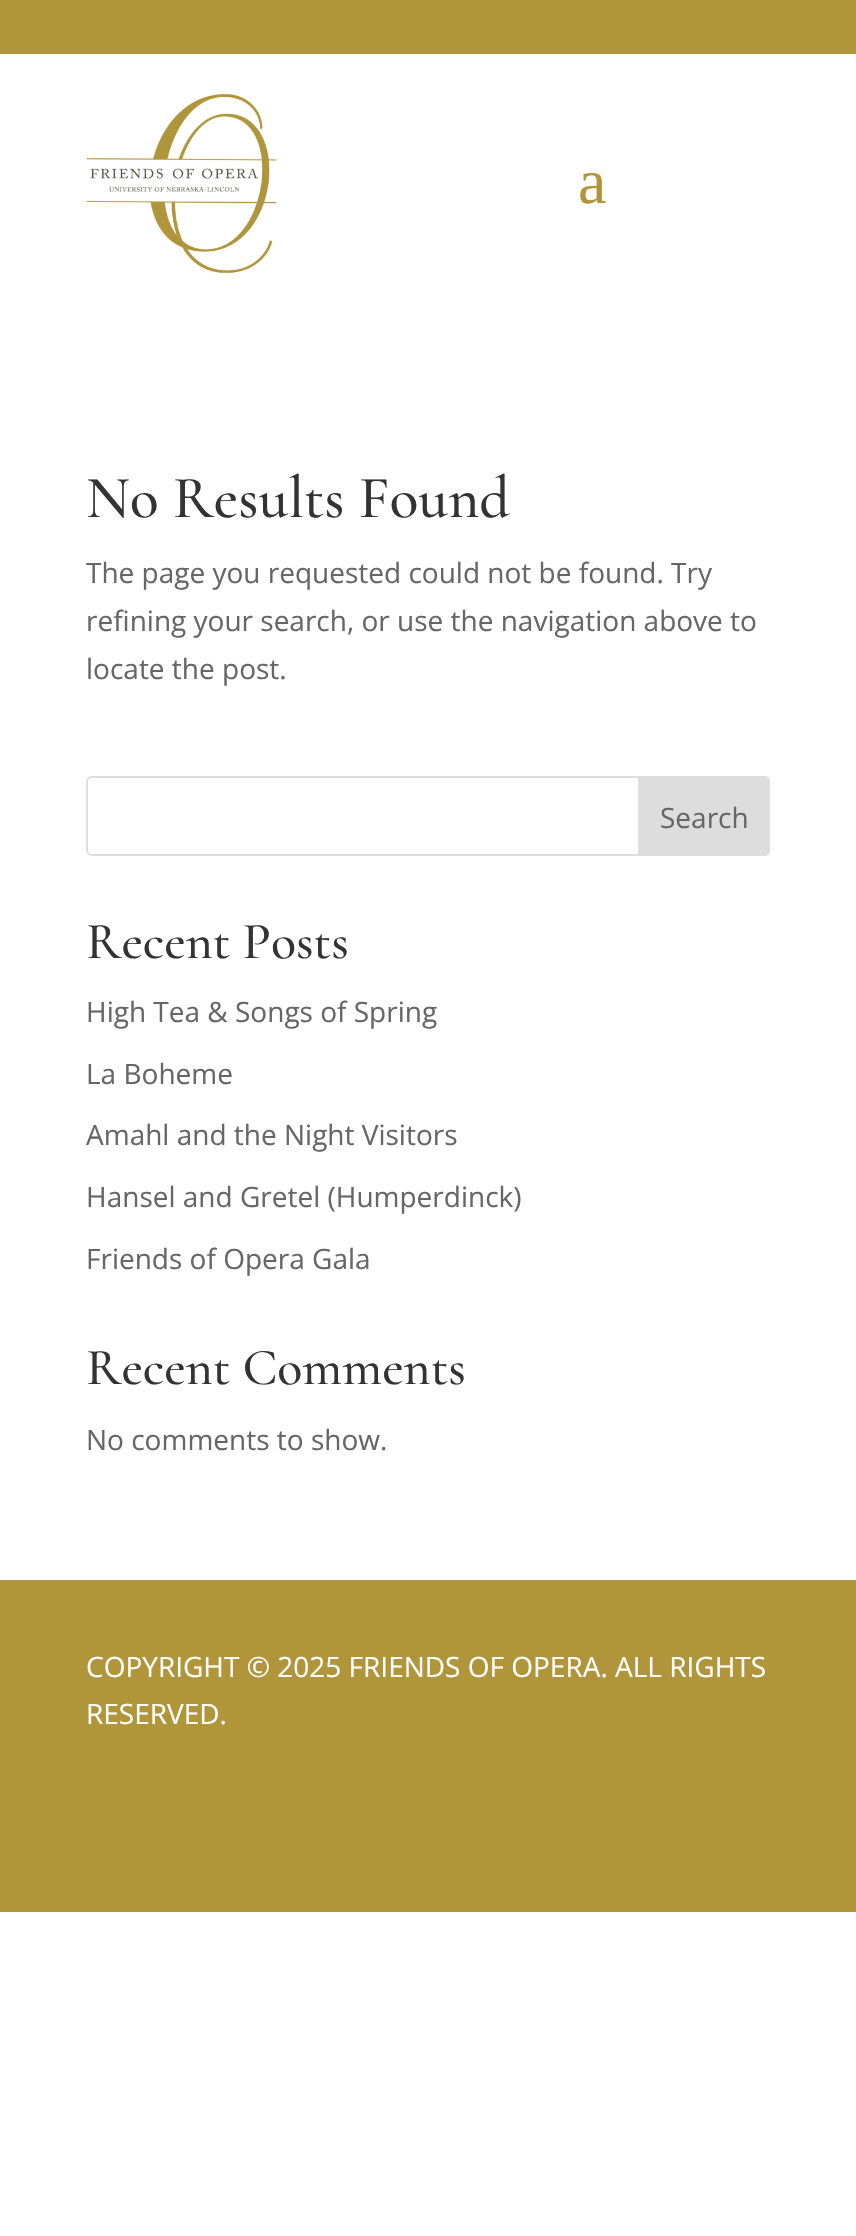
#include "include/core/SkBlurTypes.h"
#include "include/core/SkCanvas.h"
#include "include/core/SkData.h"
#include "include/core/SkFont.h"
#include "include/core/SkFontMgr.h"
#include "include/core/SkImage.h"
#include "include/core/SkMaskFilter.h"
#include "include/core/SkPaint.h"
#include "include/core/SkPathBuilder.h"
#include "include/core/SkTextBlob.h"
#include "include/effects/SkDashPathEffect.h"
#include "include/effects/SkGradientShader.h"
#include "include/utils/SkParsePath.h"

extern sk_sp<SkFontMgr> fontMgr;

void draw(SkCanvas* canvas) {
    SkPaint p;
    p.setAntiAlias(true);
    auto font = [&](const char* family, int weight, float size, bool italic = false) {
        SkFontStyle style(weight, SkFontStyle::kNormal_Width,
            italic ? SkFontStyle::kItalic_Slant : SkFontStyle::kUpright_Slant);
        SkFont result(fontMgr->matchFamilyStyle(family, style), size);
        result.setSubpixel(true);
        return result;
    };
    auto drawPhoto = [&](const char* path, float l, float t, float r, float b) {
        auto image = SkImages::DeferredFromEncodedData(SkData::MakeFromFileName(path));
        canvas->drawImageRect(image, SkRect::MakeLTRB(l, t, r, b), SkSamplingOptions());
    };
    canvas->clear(0xFFFFFFFF);
    p.setColor(0xFFB0953A);
    canvas->drawRect(SkRect::MakeLTRB(0, 0, 856, 54), p);
    drawPhoto("media/1.png", 86, 94, 277, 274);
    auto font1 = font("Liberation Serif", 400, 64);
    canvas->drawString("a", 578, 203, font1, p);
    auto font2 = font("Cormorant", 500, 60);
    p.setColor(0xFF333333);
    canvas->drawString("No Results Found", 86, 517, font2, p);
    auto font3 = font("Open Sans", 400, 28);
    p.setColor(0xFF666666);
    {
        const struct { const char* s; float x, y; } items[] = {
            {"The page you requested could not be found. Try", 86, 583},
            {"refining your search, or use the navigation above to", 86, 631},
            {"locate the post.", 86, 679},
        };
        for (auto [s, x, y] : items) {
            canvas->drawString(s, x, y, font3, p);
        }
    }
    p.setStyle(SkPaint::kStroke_Style);
    p.setStrokeWidth(2);
    p.setColor(0xFFDDDDDD);
    canvas->drawRoundRect(SkRect::MakeLTRB(87, 777, 769, 855), 5, 5, p);
    p.setStyle(SkPaint::kFill_Style);
    canvas->drawPath(SkPathBuilder().moveTo(639, 777).lineTo(764, 777).cubicTo(767, 777, 769, 779, 769, 782).lineTo(769, 850).cubicTo(769, 853, 767, 855, 764, 855).lineTo(639, 855).close().detach(), p);
    p.setStyle(SkPaint::kStroke_Style);
    canvas->drawPath(SkPathBuilder().moveTo(639, 777).lineTo(764, 777).cubicTo(767, 777, 769, 779, 769, 782).lineTo(769, 850).cubicTo(769, 853, 767, 855, 764, 855).lineTo(639, 855).close().detach(), p);
    p.setStyle(SkPaint::kFill_Style);
    p.setColor(0xFF666666);
    canvas->drawString("Search", 660, 828, font3, p);
    auto font4 = font("Cormorant", 500, 52);
    p.setColor(0xFF333333);
    canvas->drawString("Recent Posts", 86, 958, font4, p);
    p.setColor(0xFF666666);
    {
        const struct { const char* s; float x, y; } items[] = {
            {"High Tea & Songs of Spring", 86, 1022},
            {"La Boheme", 86, 1084},
            {"Amahl and the Night Visitors", 86, 1145},
            {"Hansel and Gretel (Humperdinck)", 86, 1207},
            {"Friends of Opera Gala", 86, 1269},
        };
        for (auto [s, x, y] : items) {
            canvas->drawString(s, x, y, font3, p);
        }
    }
    p.setColor(0xFF333333);
    canvas->drawString("Recent Comments", 86, 1384, font4, p);
    p.setColor(0xFF666666);
    canvas->drawString("No comments to show.", 86, 1450, font3, p);
    p.setColor(0xFFB0953A);
    canvas->drawRect(SkRect::MakeLTRB(0, 1580, 856, 1912), p);
    p.setColor(0xFFFFFFFF);
    canvas->drawString("COPYRIGHT © 2025 FRIENDS OF OPERA. ALL RIGHTS", 86, 1677, font3, p);
    canvas->drawString("RESERVED.", 86, 1724, font3, p);
}
